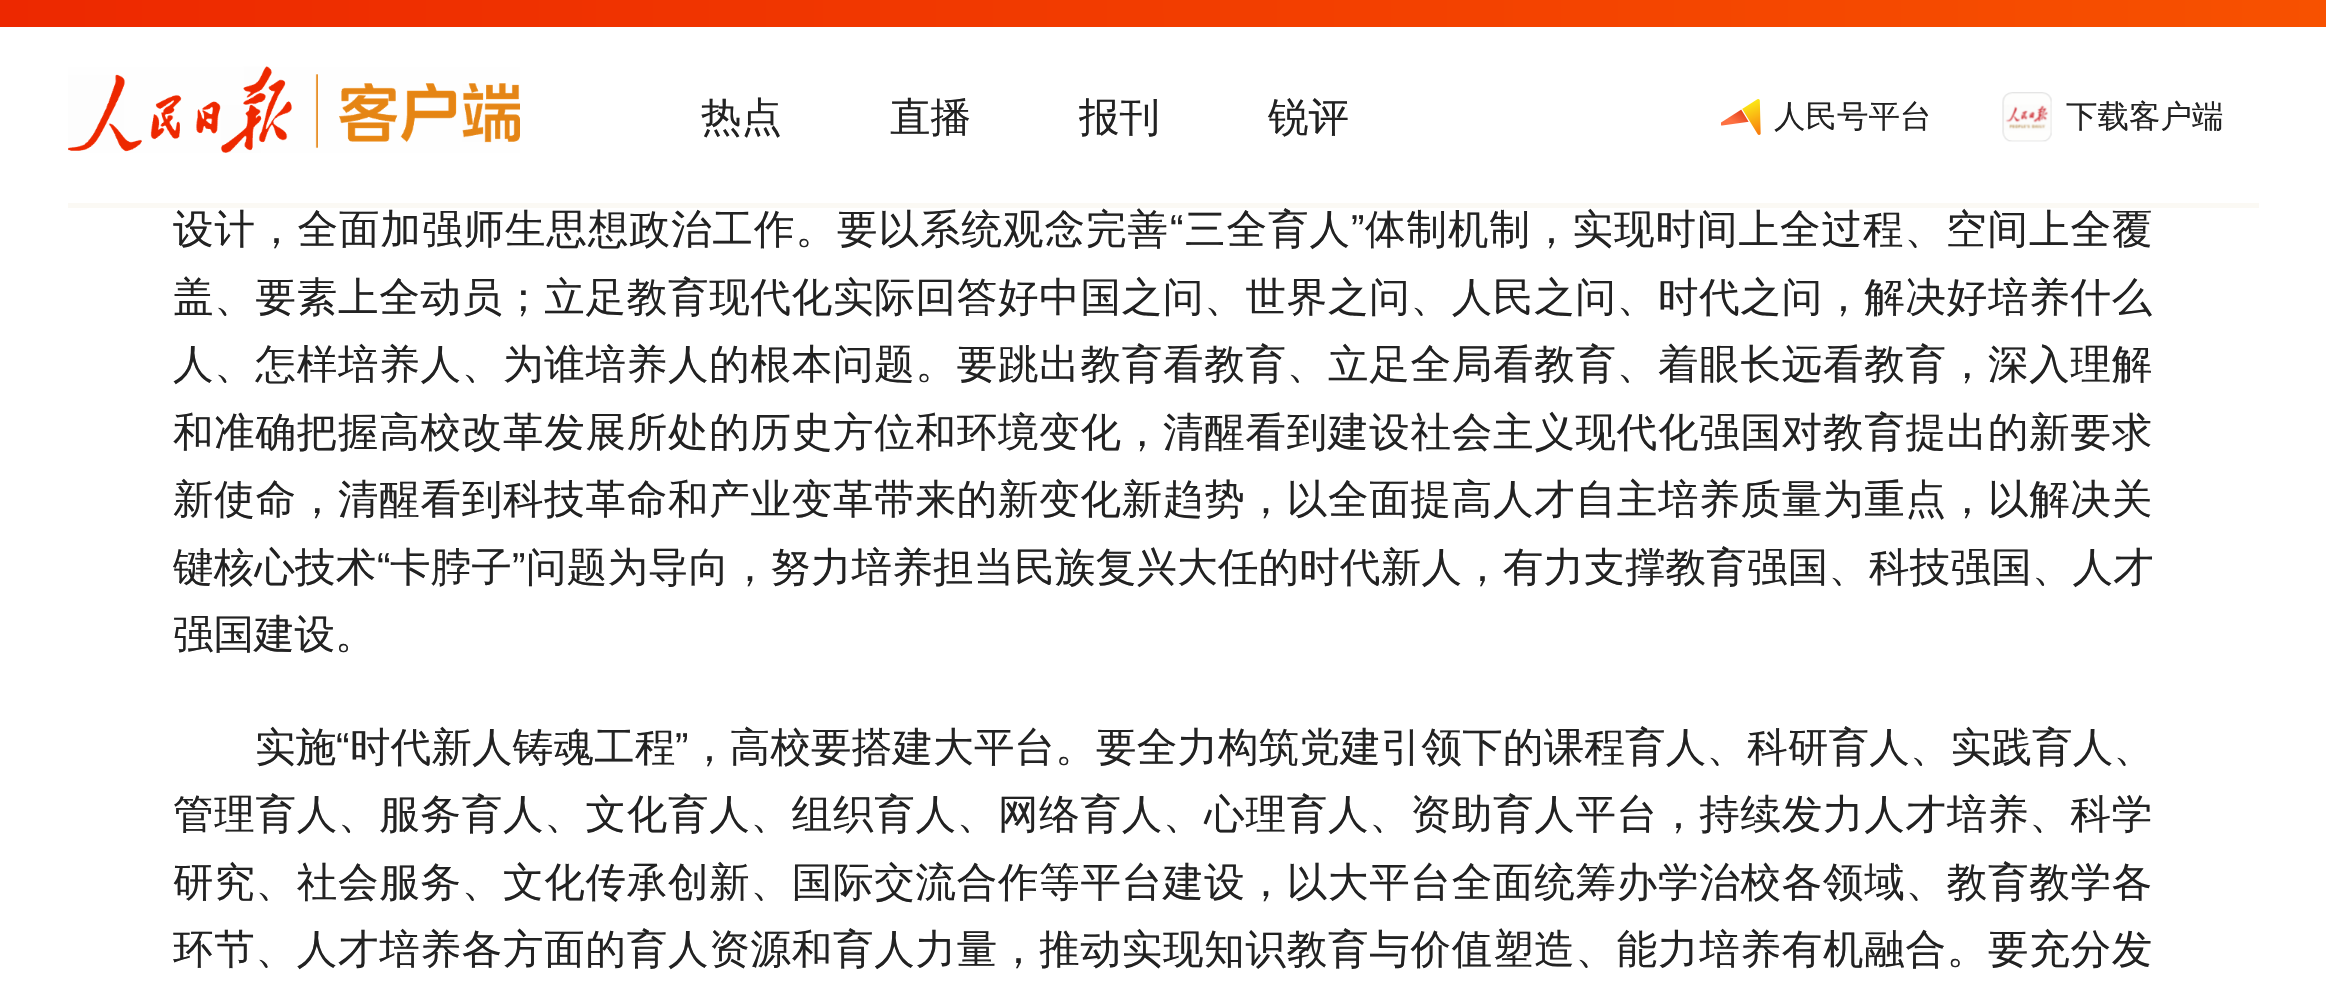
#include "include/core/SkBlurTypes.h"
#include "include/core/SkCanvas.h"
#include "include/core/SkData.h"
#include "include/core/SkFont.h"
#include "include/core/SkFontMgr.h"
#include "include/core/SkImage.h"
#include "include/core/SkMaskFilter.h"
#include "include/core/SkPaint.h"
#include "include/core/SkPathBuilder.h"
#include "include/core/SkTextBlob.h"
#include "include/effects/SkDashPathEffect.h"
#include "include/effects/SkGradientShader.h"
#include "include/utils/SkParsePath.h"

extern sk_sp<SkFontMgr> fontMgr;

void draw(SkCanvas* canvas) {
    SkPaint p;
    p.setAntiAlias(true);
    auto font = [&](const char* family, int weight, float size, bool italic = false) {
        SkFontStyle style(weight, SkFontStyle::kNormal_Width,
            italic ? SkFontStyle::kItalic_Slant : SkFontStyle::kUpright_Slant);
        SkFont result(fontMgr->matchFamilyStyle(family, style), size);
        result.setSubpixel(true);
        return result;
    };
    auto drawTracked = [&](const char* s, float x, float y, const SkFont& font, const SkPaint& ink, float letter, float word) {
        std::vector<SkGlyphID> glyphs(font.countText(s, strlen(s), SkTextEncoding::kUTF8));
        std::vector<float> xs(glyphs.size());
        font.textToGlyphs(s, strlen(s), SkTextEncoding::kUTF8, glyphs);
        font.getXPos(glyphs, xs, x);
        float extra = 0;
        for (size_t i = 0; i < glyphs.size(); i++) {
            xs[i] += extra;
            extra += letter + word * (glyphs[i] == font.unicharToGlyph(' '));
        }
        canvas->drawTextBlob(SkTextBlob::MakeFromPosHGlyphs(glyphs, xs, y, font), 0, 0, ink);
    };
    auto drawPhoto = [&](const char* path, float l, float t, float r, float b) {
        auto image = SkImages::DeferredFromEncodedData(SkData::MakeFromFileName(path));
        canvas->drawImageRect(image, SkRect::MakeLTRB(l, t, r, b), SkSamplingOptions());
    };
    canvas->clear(0xFFFFFFFF);
    {
        const SkColor colors[] = {0xFFF75100, 0xFFED2800};
        const float stops[] = {0, 1};
        const SkPoint ends[] = {{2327, 13}, {0, 14}};
        p.setShader(SkGradientShader::MakeLinear(ends, colors, stops, 2, SkTileMode::kClamp));
        p.setAlpha(255);
    }
    canvas->drawRect(SkRect::MakeLTRB(0, 0, 2326, 27), p);
    drawPhoto("media/1.png", 68, 66, 520, 153);
    auto font1 = font("WenQuanYi Zen Hei", 500, 40.5f);
    p.setShader(nullptr);
    p.setColor(0xFF222222);
    {
        const struct { const char* s; float x, y; } items[] = {
            {"热点", 701, 131},
            {"直播", 890, 131},
            {"报刊", 1079, 131},
            {"锐评", 1268, 131},
        };
        for (auto [s, x, y] : items) {
            canvas->drawString(s, x, y, font1, p);
        }
    }
    drawPhoto("media/2.png", 1721, 99, 1761, 135);
    auto font2 = font("WenQuanYi Zen Hei", 500, 31.5f);
    canvas->drawString("人民号平台", 1774, 127, font2, p);
    drawPhoto("media/3.png", 2002, 92, 2052, 142);
    canvas->drawString("下载客户端", 2066, 127, font2, p);
    p.setColor(0xFFFBF9F4);
    canvas->drawRect(SkRect::MakeLTRB(68, 203, 2259, 208), p);
    p.setColor(0xFF222222);
    drawTracked("设计，全面加强师生思想政治工作。要以系统观念完善", 173, 243, font1, p, 1, 0);
    auto font3 = font("Liberation Sans", 400, 40.5f);
    drawTracked("“", 1170, 243, font3, p, 1, 0);
    drawTracked("三全育人", 1185, 243, font1, p, 1, 0);
    drawTracked("”", 1351, 243, font3, p, 1, 0);
    drawTracked("体制机制，实现时间上全过程、空间上全覆", 1365, 243, font1, p, 1, 0);
    {
        const struct { const char* s; float x, y; } items[] = {
            {"盖、要素上全动员；立足教育现代化实际回答好中国之问、世界之问、人民之问、时代之问，解决好培养什么", 173, 311},
            {"人、怎样培养人、为谁培养人的根本问题。要跳出教育看教育、立足全局看教育、着眼长远看教育，深入理解", 173, 378},
            {"和准确把握高校改革发展所处的历史方位和环境变化，清醒看到建设社会主义现代化强国对教育提出的新要求", 173, 446},
            {"新使命，清醒看到科技革命和产业变革带来的新变化新趋势，以全面提高人才自主培养质量为重点，以解决关", 173, 513},
        };
        for (auto [s, x, y] : items) {
            drawTracked(s, x, y, font1, p, 0.75f, 0);
        }
    }
    drawTracked("键核心技术", 173, 581, font1, p, 0.2f, 0);
    drawTracked("“", 377, 581, font3, p, 0.2f, 0);
    drawTracked("卡脖子", 390, 581, font1, p, 0.2f, 0);
    drawTracked("”", 512, 581, font3, p, 0.2f, 0);
    drawTracked("问题为导向，努力培养担当民族复兴大任的时代新人，有力支撑教育强国、科技强国、人才", 526, 581, font1, p, 0.2f, 0);
    canvas->drawString("强国建设。", 173, 648, font1, p);
    drawTracked("实施", 255, 761, font1, p, 0.2f, 0);
    drawTracked("“", 336, 761, font3, p, 0.2f, 0);
    drawTracked("时代新人铸魂工程", 350, 761, font1, p, 0.2f, 0);
    drawTracked("”", 675, 761, font3, p, 0.2f, 0);
    drawTracked("，高校要搭建大平台。要全力构筑党建引领下的课程育人、科研育人、实践育人、", 689, 761, font1, p, 0.2f, 0);
    {
        const struct { const char* s; float x, y; } items[] = {
            {"管理育人、服务育人、文化育人、组织育人、网络育人、心理育人、资助育人平台，持续发力人才培养、科学", 173, 828},
            {"研究、社会服务、文化传承创新、国际交流合作等平台建设，以大平台全面统筹办学治校各领域、教育教学各", 173, 896},
            {"环节、人才培养各方面的育人资源和育人力量，推动实现知识教育与价值塑造、能力培养有机融合。要充分发", 173, 963},
        };
        for (auto [s, x, y] : items) {
            drawTracked(s, x, y, font1, p, 0.75f, 0);
        }
    }
}
